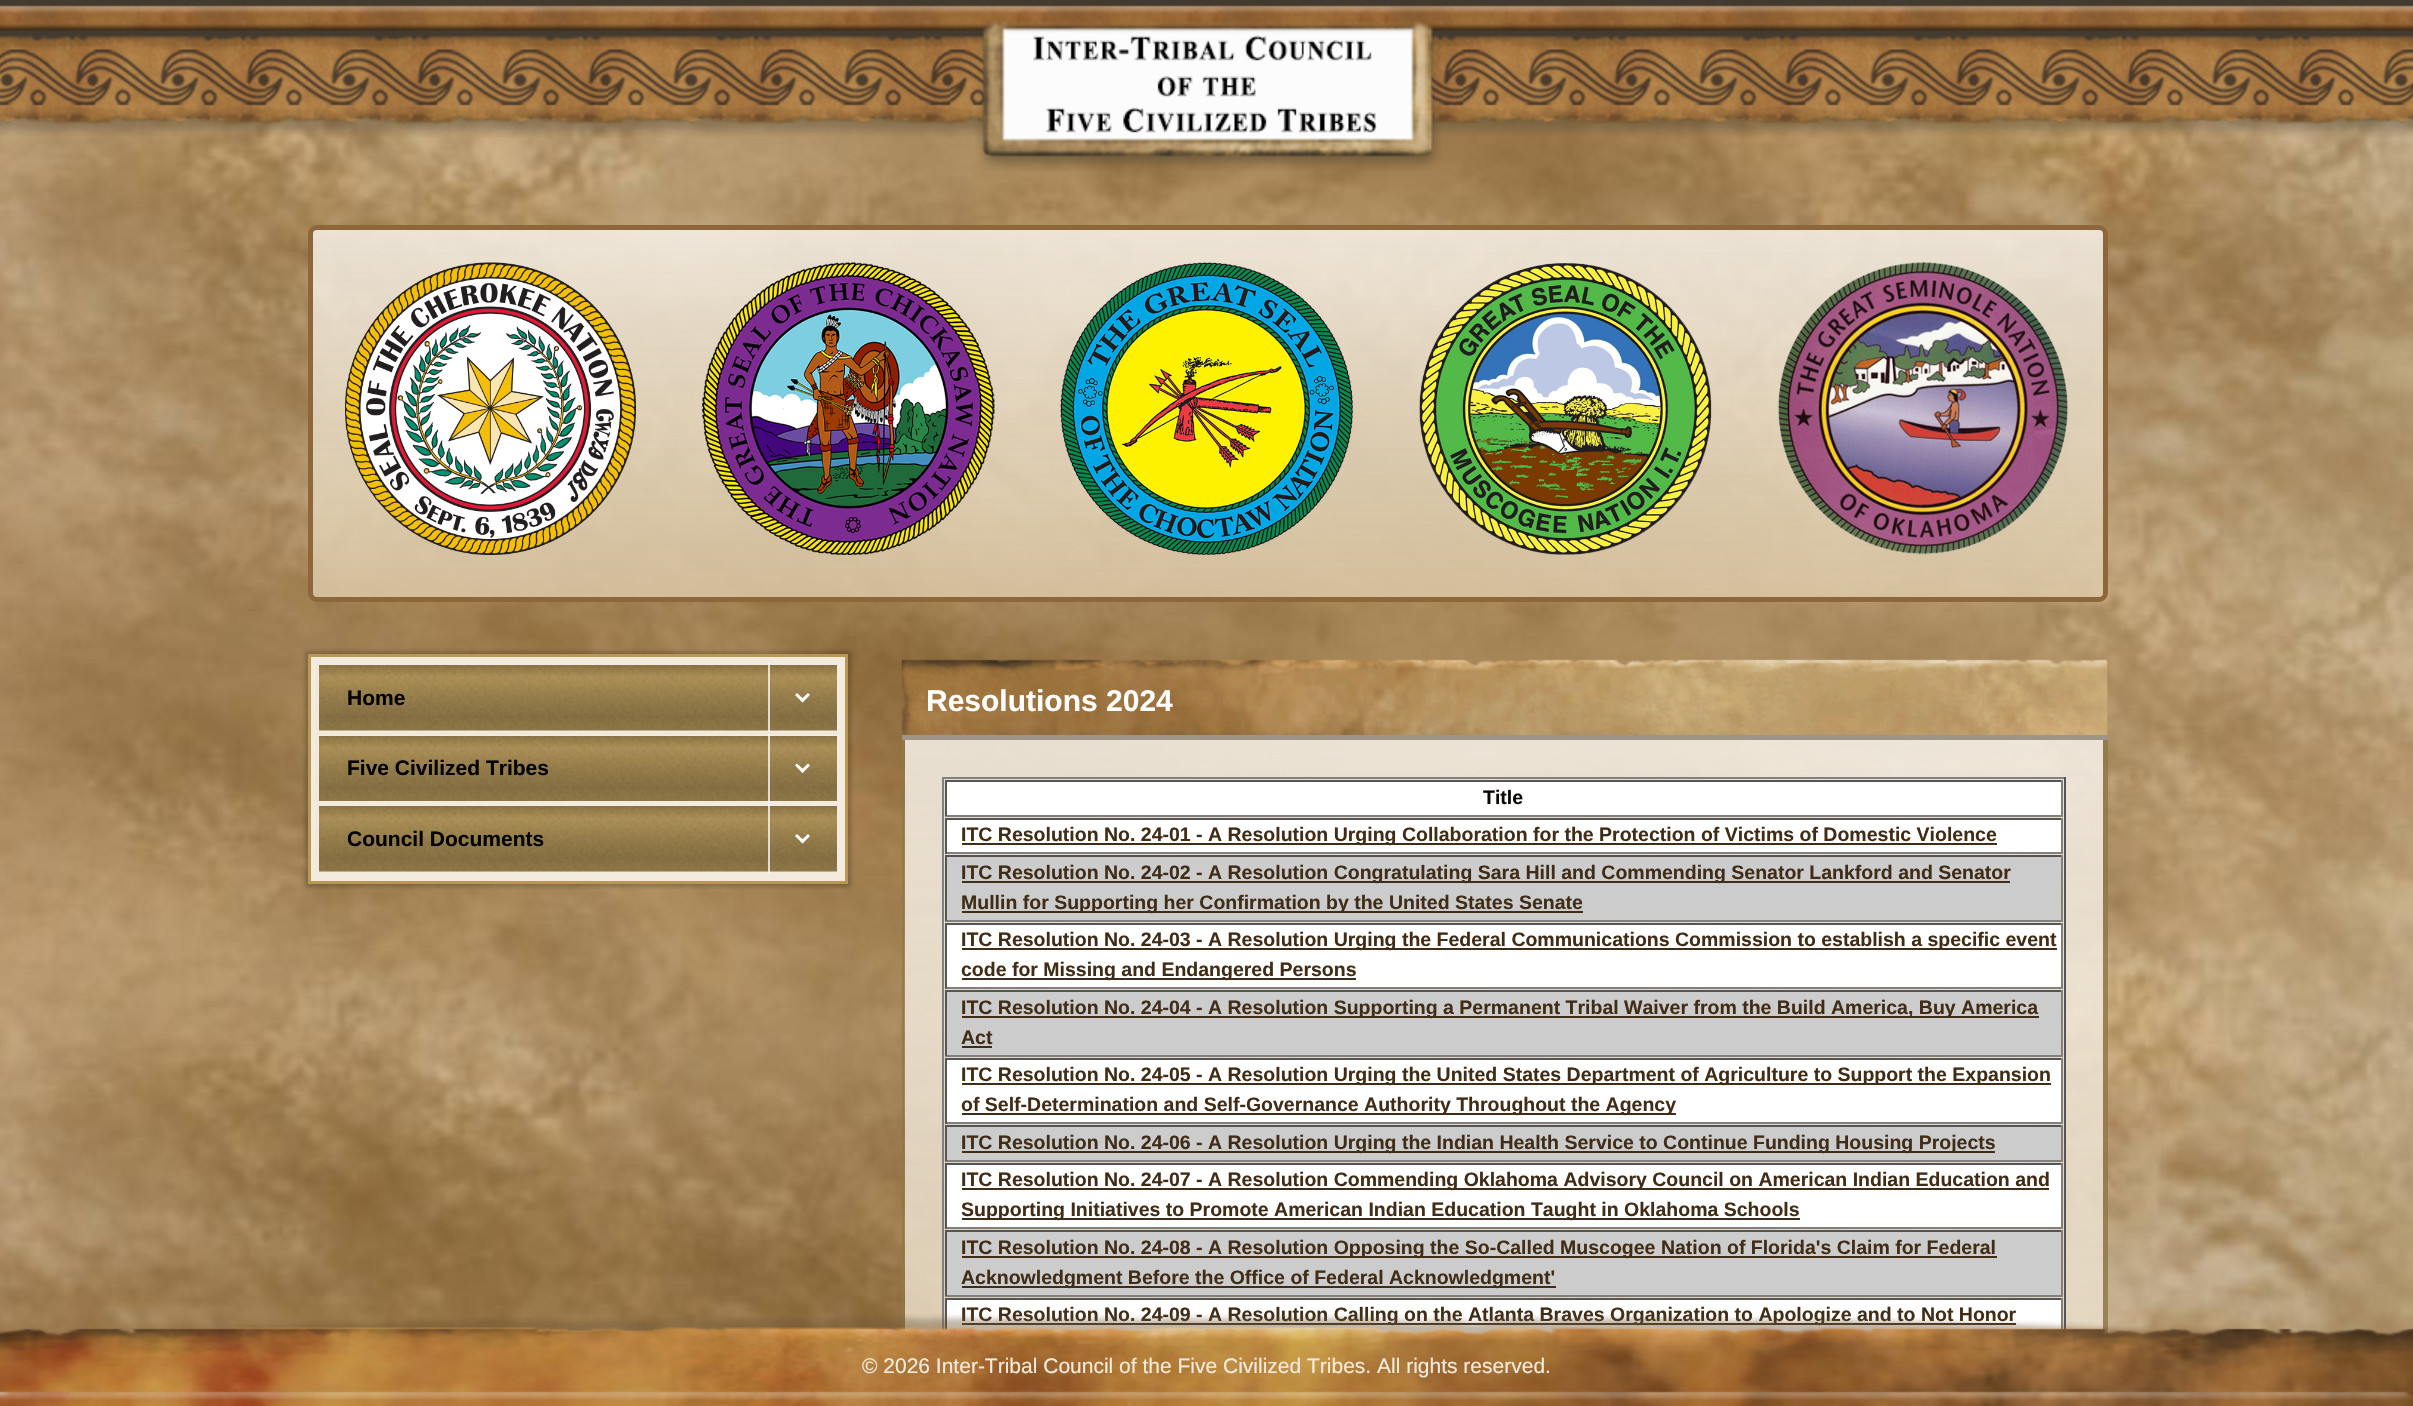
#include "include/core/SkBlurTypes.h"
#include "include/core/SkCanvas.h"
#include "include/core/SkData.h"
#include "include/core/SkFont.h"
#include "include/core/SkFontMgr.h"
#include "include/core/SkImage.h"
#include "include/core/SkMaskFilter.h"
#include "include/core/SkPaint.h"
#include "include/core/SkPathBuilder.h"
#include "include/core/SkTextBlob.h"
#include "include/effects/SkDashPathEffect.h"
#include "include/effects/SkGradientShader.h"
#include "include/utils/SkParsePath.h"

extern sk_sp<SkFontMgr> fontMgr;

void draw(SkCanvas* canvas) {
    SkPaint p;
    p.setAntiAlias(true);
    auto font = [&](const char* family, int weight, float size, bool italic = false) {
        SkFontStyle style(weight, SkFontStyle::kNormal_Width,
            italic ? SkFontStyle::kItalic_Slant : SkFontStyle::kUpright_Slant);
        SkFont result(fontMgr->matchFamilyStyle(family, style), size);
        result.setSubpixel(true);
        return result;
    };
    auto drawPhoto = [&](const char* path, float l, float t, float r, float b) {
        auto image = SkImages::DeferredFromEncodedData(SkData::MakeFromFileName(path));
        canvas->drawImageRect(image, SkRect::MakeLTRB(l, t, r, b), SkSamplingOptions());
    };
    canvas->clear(0xFFFFFFFF);
    drawPhoto("media/3.png", 0, 0, 2413, 1337);
    drawPhoto("media/1.png", 0, 0, 2413, 137);
    drawPhoto("media/2.png", 975, 20, 1441, 171);
    p.setStyle(SkPaint::kStroke_Style);
    p.setStrokeWidth(5);
    p.setColor(0xFF8D673B);
    canvas->drawRoundRect(SkRect::MakeLTRB(310.5f, 227.5f, 2105.5f, 599.5f), 6.5f, 6.5f, p);
    drawPhoto("media/4.png", 345, 262, 636, 555);
    drawPhoto("media/5.png", 702, 262, 995, 555);
    drawPhoto("media/6.png", 1060, 262, 1353, 555);
    drawPhoto("media/7.png", 1419, 263, 1712, 555);
    drawPhoto("media/8.png", 1777, 262, 2069, 555);
    p.setStyle(SkPaint::kFill_Style);
    p.setColor(0x33000000);
    p.setMaskFilter(SkMaskFilter::MakeBlur(kNormal_SkBlurStyle, 2));
    canvas->drawRect(SkRect::MakeLTRB(305, 651, 851, 887), p);
    p.setMaskFilter(nullptr);
    p.setColor(0xFFF2EBDE);
    canvas->drawRect(SkRect::MakeLTRB(309.5f, 655.5f, 846.5f, 882.5f), p);
    p.setStyle(SkPaint::kStroke_Style);
    p.setStrokeWidth(3);
    p.setColor(0xFFBB9754);
    canvas->drawRect(SkRect::MakeLTRB(309.5f, 655.5f, 846.5f, 882.5f), p);
    drawPhoto("media/9.png", 316, 663, 837, 731);
    p.setStyle(SkPaint::kFill_Style);
    {
        const struct { float l, t, r, b; SkColor color; } items[] = {
            {317, 663, 839, 665, 0xFFF2EBDE},
            {768, 663, 770, 732, 0x80FFFFFF},
            {317, 663, 319, 731, 0xFFF2EBDE},
        };
        for (auto [l, t, r, b, color] : items) {
            p.setColor(color);
            canvas->drawRect(SkRect::MakeLTRB(l, t, r, b), p);
        }
    }
    auto font1 = font("Liberation Sans", 700, 21);
    p.setColor(0xFF000000);
    canvas->drawString("Home", 347, 705, font1, p);
    p.setColor(0x80FFFFFF);
    canvas->drawRect(SkRect::MakeLTRB(768, 663, 770, 732), p);
    p.setColor(0xFFFFFFFF);
    canvas->drawPath(SkPathBuilder().moveTo(802.5f, 702.5f).lineTo(795, 695).lineTo(797, 693).lineTo(804.5f, 700).close().detach(), p);
    canvas->drawPath(SkPathBuilder().moveTo(802.5f, 702.5f).lineTo(800.5f, 700).lineTo(808, 693).lineTo(810, 695).close().detach(), p);
    drawPhoto("media/10.png", 316, 733, 838, 801);
    {
        const struct { float l, t, r, b; SkColor color; } items[] = {
            {317, 734, 839, 736, 0xFFF2EBDE},
            {768, 734, 770, 803, 0x80FFFFFF},
            {837, 734, 838, 801, 0xFFF2EBDE},
            {317, 734, 319, 801, 0xFFF2EBDE},
        };
        for (auto [l, t, r, b, color] : items) {
            p.setColor(color);
            canvas->drawRect(SkRect::MakeLTRB(l, t, r, b), p);
        }
    }
    p.setColor(0xFF000000);
    canvas->drawString("Five Civilized Tribes", 347, 775, font1, p);
    p.setColor(0x80FFFFFF);
    canvas->drawRect(SkRect::MakeLTRB(768, 734, 770, 803), p);
    p.setColor(0xFFFFFFFF);
    canvas->drawPath(SkPathBuilder().moveTo(802.5f, 773).lineTo(795, 765.5f).lineTo(797, 763.5f).lineTo(804.5f, 770.5f).close().detach(), p);
    canvas->drawPath(SkPathBuilder().moveTo(802.5f, 773).lineTo(800.5f, 770.5f).lineTo(808, 763.5f).lineTo(810, 765.5f).close().detach(), p);
    drawPhoto("media/11.png", 316, 804, 837, 872);
    {
        const struct { float l, t, r, b; SkColor color; } items[] = {
            {317, 804, 839, 806, 0xFFF2EBDE},
            {768, 804, 770, 873, 0x80FFFFFF},
            {317, 804, 319, 872, 0xFFF2EBDE},
        };
        for (auto [l, t, r, b, color] : items) {
            p.setColor(color);
            canvas->drawRect(SkRect::MakeLTRB(l, t, r, b), p);
        }
    }
    p.setColor(0xFF000000);
    canvas->drawString("Council Documents", 347, 846, font1, p);
    p.setColor(0x80FFFFFF);
    canvas->drawRect(SkRect::MakeLTRB(768, 804, 770, 873), p);
    p.setColor(0xFFFFFFFF);
    canvas->drawPath(SkPathBuilder().moveTo(802.5f, 843.5f).lineTo(795, 836).lineTo(797, 834).lineTo(804.5f, 841).close().detach(), p);
    canvas->drawPath(SkPathBuilder().moveTo(802.5f, 843.5f).lineTo(800.5f, 841).lineTo(808, 834).lineTo(810, 836).close().detach(), p);
    drawPhoto("media/12.png", 901, 659, 2108, 739);
    p.setColor(0xFF9D9588);
    canvas->drawRect(SkRect::MakeLTRB(902, 735, 2108, 740), p);
    auto font2 = font("Liberation Sans", 700, 30);
    p.setColor(0xFFFFFFFF);
    canvas->drawString("Resolutions 2024", 926, 711, font2, p);
    p.setColor(0xCC8E7748);
    canvas->drawPath(SkPathBuilder(SkPathFillType::kEvenOdd).moveTo(902, 740).lineTo(2108, 740).lineTo(2108, 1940).cubicTo(2108, 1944, 2103, 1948, 2098, 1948).lineTo(910, 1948).cubicTo(906, 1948, 902, 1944, 902, 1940).close().moveTo(904, 740).lineTo(2103, 740).lineTo(2103, 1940).cubicTo(2103, 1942, 2101, 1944, 2098, 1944).lineTo(910, 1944).cubicTo(907, 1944, 904, 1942, 904, 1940).close().detach(), p);
    {
        const struct { float l, t, r, b; SkColor color; } items[] = {
            {942, 777, 2066, 779, 0xFF808080},
            {2064, 777, 2066, 1330, 0xFF555555},
            {942, 777, 944, 1331, 0xFF808080},
            {947, 782, 2061, 815, 0xFFFFFFFF},
            {945, 780, 2063, 782, 0xFF555555},
            {2061, 780, 2063, 816, 0xFF808080},
            {945, 815, 2063, 817, 0xFF808080},
            {945, 780, 947, 816, 0xFF555555},
        };
        for (auto [l, t, r, b, color] : items) {
            p.setColor(color);
            canvas->drawRect(SkRect::MakeLTRB(l, t, r, b), p);
        }
    }
    auto font3 = font("Liberation Sans", 700, 19.5f);
    p.setColor(0xFF0B0804);
    canvas->drawString("Title", 1483, 804, font3, p);
    {
        const struct { float l, t, r, b; SkColor color; } items[] = {
            {947, 820, 2061, 852, 0xFFFFFFFF},
            {945, 818, 2063, 820, 0xFF555555},
            {2061, 818, 2063, 854, 0xFF808080},
            {945, 852, 2063, 854, 0xFF808080},
            {945, 818, 947, 854, 0xFF555555},
            {962, 843, 1997, 845, 0xFF412D17},
        };
        for (auto [l, t, r, b, color] : items) {
            p.setColor(color);
            canvas->drawRect(SkRect::MakeLTRB(l, t, r, b), p);
        }
    }
    canvas->drawString("ITC Resolution No. 24-01 - A Resolution Urging Collaboration for the Protection of Victims of Domestic Violence", 961, 841, font3, p);
    {
        const struct { float l, t, r, b; SkColor color; } items[] = {
            {947, 857, 2061, 920, 0xFFCCCCCC},
            {945, 855, 2063, 857, 0xFF555555},
            {2061, 855, 2063, 921, 0xFF808080},
            {945, 920, 2063, 922, 0xFF808080},
            {945, 855, 947, 921, 0xFF555555},
            {962, 881, 2010, 883, 0xFF412D17},
        };
        for (auto [l, t, r, b, color] : items) {
            p.setColor(color);
            canvas->drawRect(SkRect::MakeLTRB(l, t, r, b), p);
        }
    }
    canvas->drawString("ITC Resolution No. 24-02 - A Resolution Congratulating Sara Hill and Commending Senator Lankford and Senator", 961, 879, font3, p);
    canvas->drawRect(SkRect::MakeLTRB(962, 911, 1583, 913), p);
    canvas->drawString("Mullin for Supporting her Confirmation by the United States Senate", 961, 909, font3, p);
    {
        const struct { float l, t, r, b; SkColor color; } items[] = {
            {947, 925, 2061, 987, 0xFFFFFFFF},
            {945, 923, 2063, 925, 0xFF555555},
            {2061, 923, 2063, 989, 0xFF808080},
            {945, 987, 2063, 989, 0xFF808080},
            {945, 923, 947, 989, 0xFF555555},
            {962, 948, 2057, 950, 0xFF412D17},
        };
        for (auto [l, t, r, b, color] : items) {
            p.setColor(color);
            canvas->drawRect(SkRect::MakeLTRB(l, t, r, b), p);
        }
    }
    canvas->drawString("ITC Resolution No. 24-03 - A Resolution Urging the Federal Communications Commission to establish a specific event", 961, 946, font3, p);
    canvas->drawRect(SkRect::MakeLTRB(962, 978, 1356, 980), p);
    canvas->drawString("code for Missing and Endangered Persons", 961, 976, font3, p);
    {
        const struct { float l, t, r, b; SkColor color; } items[] = {
            {947, 992, 2061, 1055, 0xFFCCCCCC},
            {945, 990, 2063, 992, 0xFF555555},
            {2061, 990, 2063, 1056, 0xFF808080},
            {945, 1055, 2063, 1057, 0xFF808080},
            {945, 990, 947, 1056, 0xFF555555},
            {962, 1016, 2039, 1018, 0xFF412D17},
        };
        for (auto [l, t, r, b, color] : items) {
            p.setColor(color);
            canvas->drawRect(SkRect::MakeLTRB(l, t, r, b), p);
        }
    }
    canvas->drawString("ITC Resolution No. 24-04 - A Resolution Supporting a Permanent Tribal Waiver from the Build America, Buy America", 961, 1014, font3, p);
    canvas->drawString("Act", 961, 1044, font3, p);
    {
        const struct { float l, t, r, b; SkColor color; } items[] = {
            {962, 1046, 992, 1048, 0xFF412D17},
            {947, 1060, 2061, 1122, 0xFFFFFFFF},
            {945, 1058, 2063, 1060, 0xFF555555},
            {2061, 1058, 2063, 1124, 0xFF808080},
            {945, 1122, 2063, 1124, 0xFF808080},
            {945, 1058, 947, 1124, 0xFF555555},
            {962, 1083, 2051, 1085, 0xFF412D17},
        };
        for (auto [l, t, r, b, color] : items) {
            p.setColor(color);
            canvas->drawRect(SkRect::MakeLTRB(l, t, r, b), p);
        }
    }
    canvas->drawString("ITC Resolution No. 24-05 - A Resolution Urging the United States Department of Agriculture to Support the Expansion", 961, 1081, font3, p);
    canvas->drawRect(SkRect::MakeLTRB(962, 1113, 1676, 1115), p);
    canvas->drawString("of Self-Determination and Self-Governance Authority Throughout the Agency", 961, 1111, font3, p);
    {
        const struct { float l, t, r, b; SkColor color; } items[] = {
            {947, 1127, 2061, 1160, 0xFFCCCCCC},
            {945, 1125, 2063, 1127, 0xFF555555},
            {2061, 1125, 2063, 1161, 0xFF808080},
            {945, 1160, 2063, 1162, 0xFF808080},
            {945, 1125, 947, 1161, 0xFF555555},
            {962, 1151, 1995, 1153, 0xFF412D17},
        };
        for (auto [l, t, r, b, color] : items) {
            p.setColor(color);
            canvas->drawRect(SkRect::MakeLTRB(l, t, r, b), p);
        }
    }
    canvas->drawString("ITC Resolution No. 24-06 - A Resolution Urging the Indian Health Service to Continue Funding Housing Projects", 961, 1149, font3, p);
    {
        const struct { float l, t, r, b; SkColor color; } items[] = {
            {947, 1165, 2061, 1227, 0xFFFFFFFF},
            {945, 1163, 2063, 1165, 0xFF555555},
            {2061, 1163, 2063, 1229, 0xFF808080},
            {945, 1227, 2063, 1229, 0xFF808080},
            {945, 1163, 947, 1229, 0xFF555555},
            {962, 1188, 2049, 1190, 0xFF412D17},
        };
        for (auto [l, t, r, b, color] : items) {
            p.setColor(color);
            canvas->drawRect(SkRect::MakeLTRB(l, t, r, b), p);
        }
    }
    canvas->drawString("ITC Resolution No. 24-07 - A Resolution Commending Oklahoma Advisory Council on American Indian Education and", 961, 1186, font3, p);
    canvas->drawRect(SkRect::MakeLTRB(962, 1218, 1800, 1220), p);
    canvas->drawString("Supporting Initiatives to Promote American Indian Education Taught in Oklahoma Schools", 961, 1216, font3, p);
    {
        const struct { float l, t, r, b; SkColor color; } items[] = {
            {947, 1232, 2061, 1295, 0xFFCCCCCC},
            {945, 1230, 2063, 1232, 0xFF555555},
            {2061, 1230, 2063, 1296, 0xFF808080},
            {945, 1295, 2063, 1297, 0xFF808080},
            {945, 1230, 947, 1296, 0xFF555555},
            {962, 1256, 1997, 1258, 0xFF412D17},
        };
        for (auto [l, t, r, b, color] : items) {
            p.setColor(color);
            canvas->drawRect(SkRect::MakeLTRB(l, t, r, b), p);
        }
    }
    canvas->drawString("ITC Resolution No. 24-08 - A Resolution Opposing the So-Called Muscogee Nation of Florida's Claim for Federal", 961, 1254, font3, p);
    canvas->drawRect(SkRect::MakeLTRB(962, 1286, 1556, 1288), p);
    canvas->drawString("Acknowledgment Before the Office of Federal Acknowledgment'", 961, 1284, font3, p);
    {
        const struct { float l, t, r, b; SkColor color; } items[] = {
            {947, 1300, 2061, 1337, 0xFFFFFFFF},
            {945, 1298, 2063, 1300, 0xFF555555},
            {2061, 1298, 2063, 1330, 0xFF808080},
            {945, 1298, 947, 1331, 0xFF555555},
            {962, 1323, 2016, 1325, 0xFF412D17},
        };
        for (auto [l, t, r, b, color] : items) {
            p.setColor(color);
            canvas->drawRect(SkRect::MakeLTRB(l, t, r, b), p);
        }
    }
    canvas->drawString("ITC Resolution No. 24-09 - A Resolution Calling on the Atlanta Braves Organization to Apologize and to Not Honor", 961, 1321, font3, p);
    drawPhoto("media/13.png", 0, 1314, 2413, 1406);
    auto font4 = font("Liberation Sans", 400, 21);
    p.setColor(0xFFF2EBDE);
    canvas->drawString("© 2026 Inter-Tribal Council of the Five Civilized Tribes. All rights reserved.", 862, 1373, font4, p);
}
